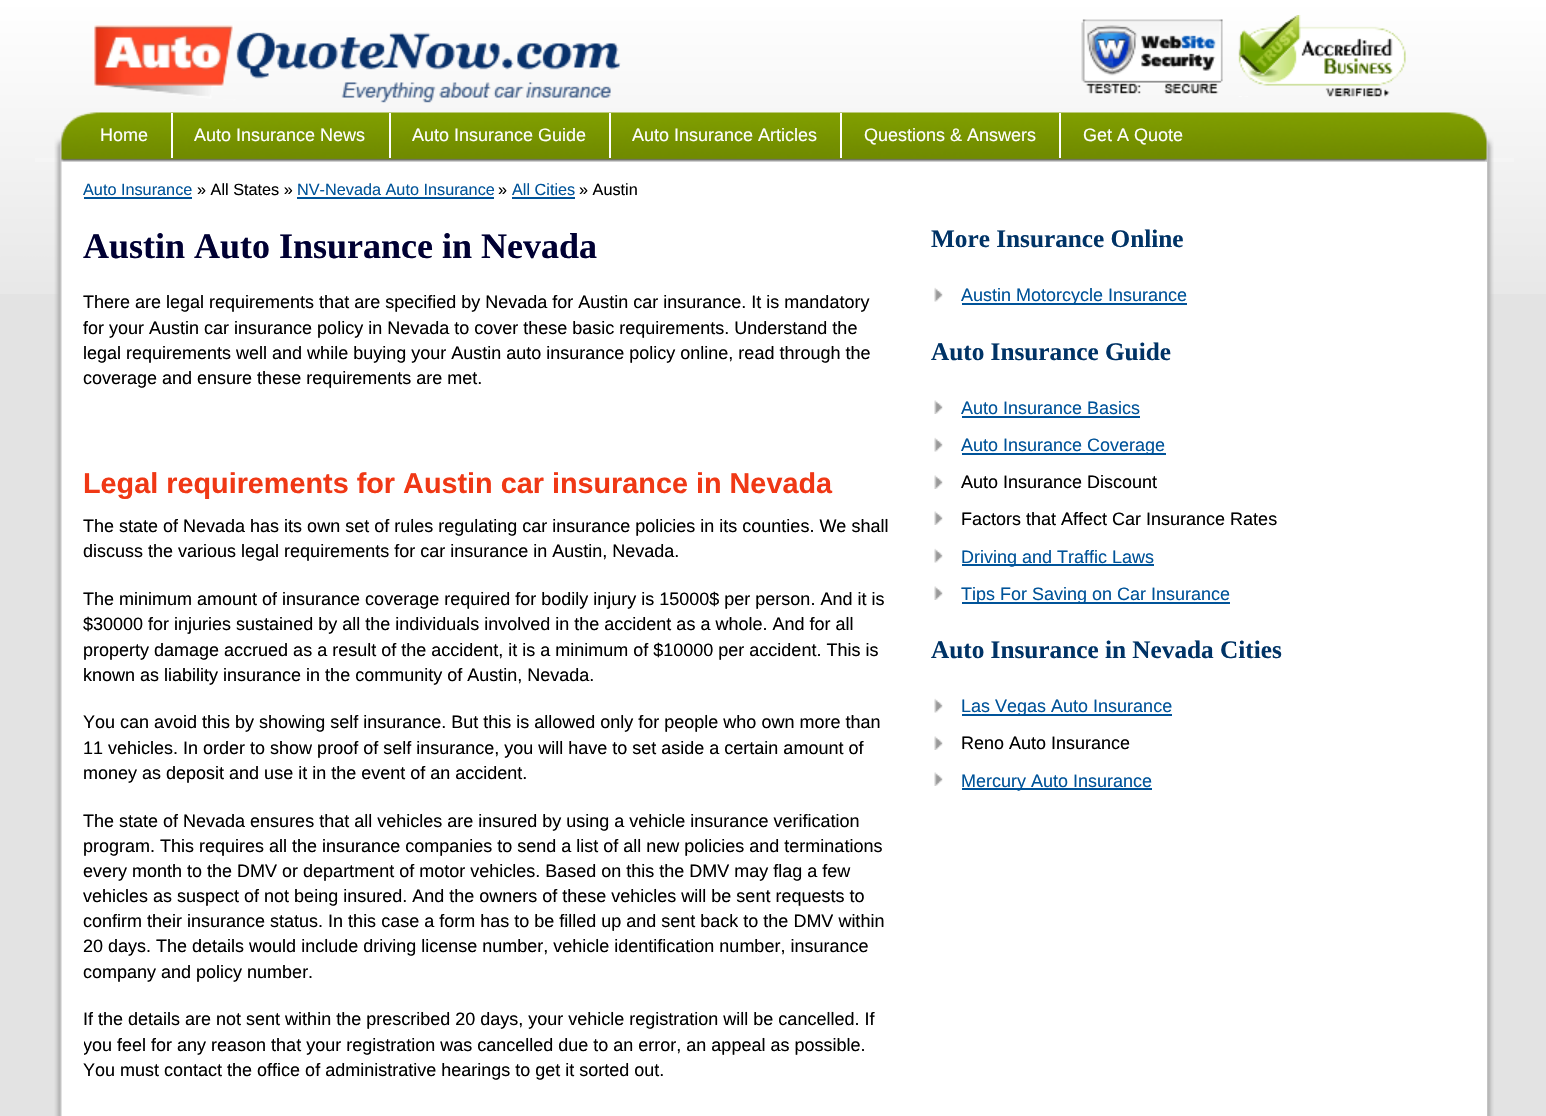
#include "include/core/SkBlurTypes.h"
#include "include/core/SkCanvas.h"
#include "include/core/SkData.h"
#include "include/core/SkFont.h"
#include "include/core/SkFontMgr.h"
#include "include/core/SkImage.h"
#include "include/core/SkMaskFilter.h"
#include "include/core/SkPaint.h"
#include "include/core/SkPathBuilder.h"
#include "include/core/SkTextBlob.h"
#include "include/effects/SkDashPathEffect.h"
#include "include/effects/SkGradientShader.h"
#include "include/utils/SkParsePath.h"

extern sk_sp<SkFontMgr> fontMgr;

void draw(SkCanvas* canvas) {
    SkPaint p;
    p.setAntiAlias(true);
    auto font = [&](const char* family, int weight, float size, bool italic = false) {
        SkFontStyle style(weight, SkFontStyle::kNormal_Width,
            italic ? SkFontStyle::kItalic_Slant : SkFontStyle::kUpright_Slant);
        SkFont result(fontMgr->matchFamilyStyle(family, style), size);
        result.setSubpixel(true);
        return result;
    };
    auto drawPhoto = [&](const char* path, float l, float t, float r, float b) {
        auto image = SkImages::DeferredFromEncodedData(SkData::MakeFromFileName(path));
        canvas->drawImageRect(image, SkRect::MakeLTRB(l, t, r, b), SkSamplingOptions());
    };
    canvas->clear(0xFFE3E3E3);
    drawPhoto("media/1.png", 0, 0, 1546, 294);
    drawPhoto("media/2.png", 94, 25, 621, 103);
    drawPhoto("media/3.png", 1081, 19, 1223, 94);
    drawPhoto("media/4.png", 1238, 15, 1406, 97);
    p.setColor(0xFFF5F5F5);
    canvas->drawRect(SkRect::MakeLTRB(35, 158, 1514, 162), p);
    drawPhoto("media/5.png", 54, 112, 1494, 162);
    auto font1 = font("Liberation Sans", 400, 18);
    p.setColor(0xFFFFFFFF);
    canvas->drawString("Home", 100, 141, font1, p);
    canvas->drawRect(SkRect::MakeLTRB(171, 113, 173, 158), p);
    canvas->drawString("Auto Insurance News", 194, 141, font1, p);
    canvas->drawRect(SkRect::MakeLTRB(389, 113, 391, 158), p);
    canvas->drawString("Auto Insurance Guide", 412, 141, font1, p);
    canvas->drawRect(SkRect::MakeLTRB(609, 113, 611, 158), p);
    canvas->drawString("Auto Insurance Articles", 632, 141, font1, p);
    canvas->drawRect(SkRect::MakeLTRB(840, 113, 842, 158), p);
    canvas->drawString("Questions & Answers", 864, 141, font1, p);
    canvas->drawRect(SkRect::MakeLTRB(1059, 113, 1061, 158), p);
    canvas->drawString("Get A Quote", 1083, 141, font1, p);
    drawPhoto("media/6.png", 54, 162, 1494, 1116);
    canvas->drawRect(SkRect::MakeLTRB(1486, 162, 1487, 1116), p);
    auto font2 = font("Liberation Sans", 400, 16.25f);
    p.setColor(0xFF005399);
    canvas->drawString("Auto Insurance", 83, 195, font2, p);
    canvas->drawRect(SkRect::MakeLTRB(84, 197, 192, 199), p);
    p.setColor(0xFF000000);
    canvas->drawString("» All States »", 197, 195, font2, p);
    p.setColor(0xFF005399);
    canvas->drawString("NV-Nevada Auto Insurance", 297, 195, font2, p);
    canvas->drawRect(SkRect::MakeLTRB(297, 197, 494, 199), p);
    p.setColor(0xFF000000);
    canvas->drawString("»", 498, 195, font2, p);
    p.setColor(0xFF005399);
    canvas->drawString("All Cities", 512, 195, font2, p);
    canvas->drawRect(SkRect::MakeLTRB(512, 197, 575, 199), p);
    p.setColor(0xFF000000);
    canvas->drawString("» Austin", 579, 195, font2, p);
    auto font3 = font("Liberation Serif", 700, 36);
    p.setColor(0xFF000033);
    canvas->drawString("Austin Auto Insurance in Nevada", 83, 258, font3, p);
    p.setColor(0xFF000000);
    {
        const struct { const char* s; float x, y; } items[] = {
            {"There are legal requirements that are specified by Nevada for Austin car insurance. It is mandatory", 83, 308},
            {"for your Austin car insurance policy in Nevada to cover these basic requirements. Understand the", 83, 334},
            {"legal requirements well and while buying your Austin auto insurance policy online, read through the", 83, 359},
            {"coverage and ensure these requirements are met.", 83, 384},
        };
        for (auto [s, x, y] : items) {
            canvas->drawString(s, x, y, font1, p);
        }
    }
    auto font4 = font("Liberation Sans", 700, 28.8f);
    p.setColor(0xFFF03815);
    canvas->drawString("Legal requirements for Austin car insurance in Nevada", 83, 493, font4, p);
    p.setColor(0xFF000000);
    {
        const struct { const char* s; float x, y; } items[] = {
            {"The state of Nevada has its own set of rules regulating car insurance policies in its counties. We shall", 83, 532},
            {"discuss the various legal requirements for car insurance in Austin, Nevada.", 83, 557},
            {"The minimum amount of insurance coverage required for bodily injury is 15000$ per person. And it is", 83, 605},
            {"$30000 for injuries sustained by all the individuals involved in the accident as a whole. And for all", 83, 630},
            {"property damage accrued as a result of the accident, it is a minimum of $10000 per accident. This is", 83, 656},
            {"known as liability insurance in the community of Austin, Nevada.", 83, 681},
            {"You can avoid this by showing self insurance. But this is allowed only for people who own more than", 83, 728},
            {"11 vehicles. In order to show proof of self insurance, you will have to set aside a certain amount of", 83, 754},
            {"money as deposit and use it in the event of an accident.", 83, 779},
            {"The state of Nevada ensures that all vehicles are insured by using a vehicle insurance verification", 83, 827},
            {"program. This requires all the insurance companies to send a list of all new policies and terminations", 83, 852},
            {"every month to the DMV or department of motor vehicles. Based on this the DMV may flag a few", 83, 877},
            {"vehicles as suspect of not being insured. And the owners of these vehicles will be sent requests to", 83, 902},
            {"confirm their insurance status. In this case a form has to be filled up and sent back to the DMV within", 83, 927},
            {"20 days. The details would include driving license number, vehicle identification number, insurance", 83, 952},
            {"company and policy number.", 83, 978},
            {"If the details are not sent within the prescribed 20 days, your vehicle registration will be cancelled. If", 83, 1025},
        };
        for (auto [s, x, y] : items) {
            canvas->drawString(s, x, y, font1, p);
        }
    }
    canvas->save();
    canvas->clipRect(SkRect::MakeLTRB(84, 437, 894, 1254));
    canvas->drawString("you feel for any reason that your registration was cancelled due to an error, an appeal as possible.", 83, 1051, font1, p);
    canvas->restore();
    canvas->drawString("You must contact the office of administrative hearings to get it sorted out.", 83, 1076, font1, p);
    auto font5 = font("Liberation Serif", 700, 25.25f);
    p.setColor(0xFF003366);
    canvas->drawString("More Insurance Online", 931, 247, font5, p);
    drawPhoto("media/7.png", 934, 287, 943, 302);
    p.setColor(0xFF005399);
    canvas->drawRect(SkRect::MakeLTRB(962, 303, 1187, 305), p);
    canvas->drawString("Austin Motorcycle Insurance", 961, 301, font1, p);
    p.setColor(0xFF003366);
    canvas->drawString("Auto Insurance Guide", 931, 360, font5, p);
    drawPhoto("media/8.png", 934, 400, 943, 414);
    p.setColor(0xFF005399);
    canvas->drawString("Auto Insurance Basics", 961, 414, font1, p);
    canvas->drawRect(SkRect::MakeLTRB(962, 416, 1140, 418), p);
    drawPhoto("media/7.png", 934, 437, 943, 452);
    canvas->drawRect(SkRect::MakeLTRB(962, 453, 1166, 455), p);
    canvas->drawString("Auto Insurance Coverage", 961, 451, font1, p);
    drawPhoto("media/8.png", 934, 475, 943, 489);
    p.setColor(0xFF000000);
    canvas->drawString("Auto Insurance Discount", 961, 488, font1, p);
    drawPhoto("media/8.png", 934, 511, 943, 525);
    canvas->drawString("Factors that Affect Car Insurance Rates", 961, 525, font1, p);
    drawPhoto("media/7.png", 934, 548, 943, 563);
    p.setColor(0xFF005399);
    canvas->drawRect(SkRect::MakeLTRB(962, 564, 1154, 566), p);
    canvas->drawString("Driving and Traffic Laws", 961, 563, font1, p);
    drawPhoto("media/8.png", 934, 586, 943, 600);
    canvas->drawRect(SkRect::MakeLTRB(962, 602, 1230, 604), p);
    canvas->drawString("Tips For Saving on Car Insurance", 961, 600, font1, p);
    p.setColor(0xFF003366);
    canvas->drawString("Auto Insurance in Nevada Cities", 931, 658, font5, p);
    drawPhoto("media/7.png", 934, 698, 943, 713);
    p.setColor(0xFF005399);
    canvas->drawRect(SkRect::MakeLTRB(962, 714, 1172, 716), p);
    canvas->drawString("Las Vegas Auto Insurance", 961, 712, font1, p);
    drawPhoto("media/8.png", 934, 736, 943, 750);
    p.setColor(0xFF000000);
    canvas->drawString("Reno Auto Insurance", 961, 749, font1, p);
    drawPhoto("media/8.png", 934, 772, 943, 786);
    p.setColor(0xFF005399);
    canvas->drawRect(SkRect::MakeLTRB(962, 788, 1152, 790), p);
    canvas->drawString("Mercury Auto Insurance", 961, 787, font1, p);
}
